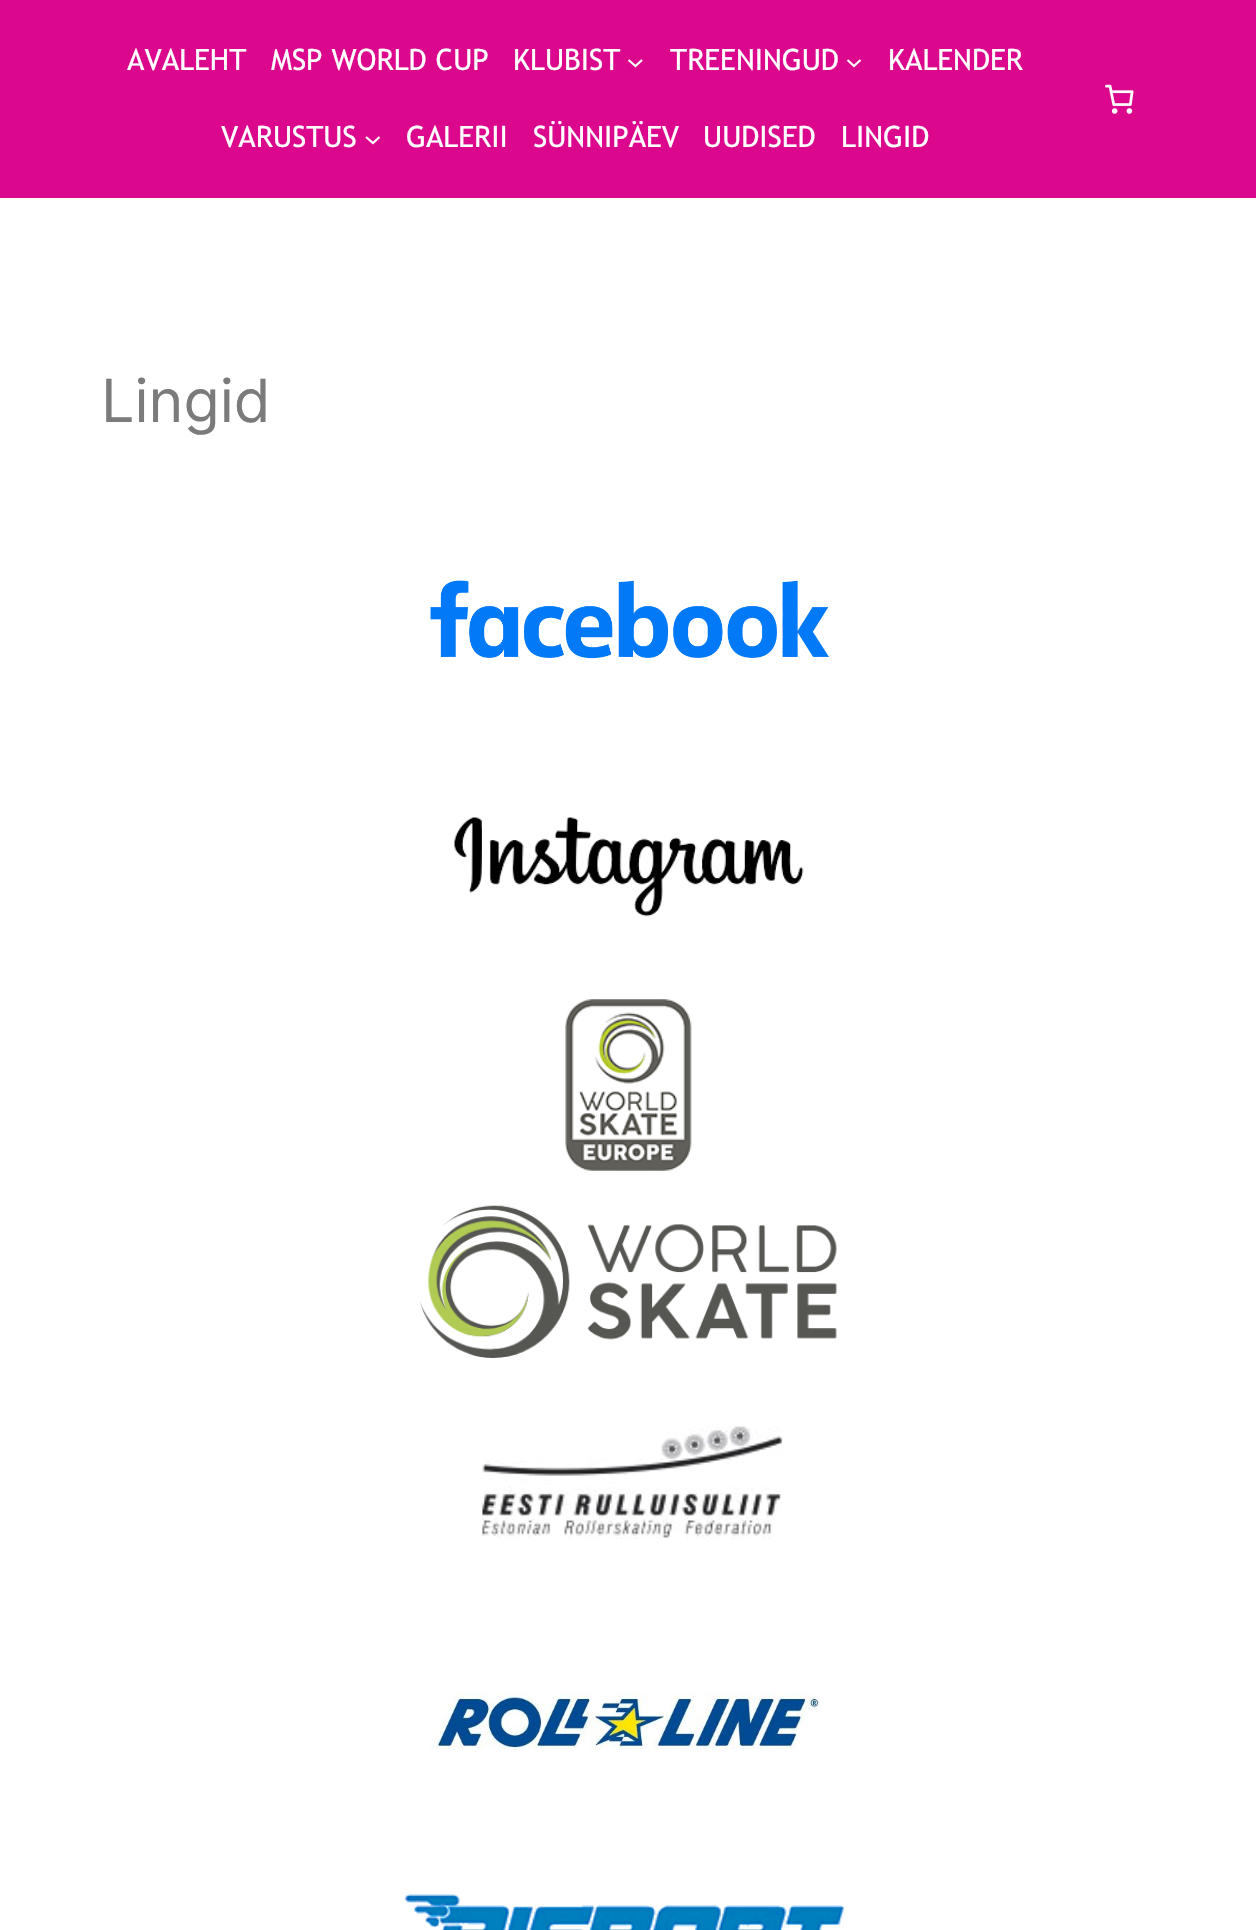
#include "include/core/SkBlurTypes.h"
#include "include/core/SkCanvas.h"
#include "include/core/SkData.h"
#include "include/core/SkFont.h"
#include "include/core/SkFontMgr.h"
#include "include/core/SkImage.h"
#include "include/core/SkMaskFilter.h"
#include "include/core/SkPaint.h"
#include "include/core/SkPathBuilder.h"
#include "include/core/SkTextBlob.h"
#include "include/effects/SkDashPathEffect.h"
#include "include/effects/SkGradientShader.h"
#include "include/utils/SkParsePath.h"

extern sk_sp<SkFontMgr> fontMgr;

void draw(SkCanvas* canvas) {
    SkPaint p;
    p.setAntiAlias(true);
    auto font = [&](const char* family, int weight, float size, bool italic = false) {
        SkFontStyle style(weight, SkFontStyle::kNormal_Width,
            italic ? SkFontStyle::kItalic_Slant : SkFontStyle::kUpright_Slant);
        SkFont result(fontMgr->matchFamilyStyle(family, style), size);
        result.setSubpixel(true);
        return result;
    };
    auto drawPhoto = [&](const char* path, float l, float t, float r, float b) {
        auto image = SkImages::DeferredFromEncodedData(SkData::MakeFromFileName(path));
        canvas->drawImageRect(image, SkRect::MakeLTRB(l, t, r, b), SkSamplingOptions());
    };
    canvas->clear(0xFFFFFFFF);
    p.setColor(0xFFDB088E);
    canvas->drawRect(SkRect::MakeLTRB(0, 0, 1256, 198), p);
    auto font1 = font("Trebuchet MS", 400, 29.5f);
    p.setColor(0xFFFFFFFF);
    {
        const struct { const char* s; float x, y; } items[] = {
            {"AVALEHT", 127, 70},
            {"MSP WORLD CUP", 271, 70},
            {"KLUBIST", 513, 70},
        };
        for (auto [s, x, y] : items) {
            canvas->drawString(s, x, y, font1, p);
        }
    }
    p.setStyle(SkPaint::kStroke_Style);
    p.setStrokeWidth(2.2f);
    canvas->drawPath(SkPathBuilder().moveTo(628.5f, 60).lineTo(635.5f, 66).lineTo(642, 60).detach(), p);
    p.setStyle(SkPaint::kFill_Style);
    canvas->drawString("TREENINGUD", 670, 70, font1, p);
    p.setStyle(SkPaint::kStroke_Style);
    canvas->drawPath(SkPathBuilder().moveTo(847.5f, 60).lineTo(854, 66).lineTo(860.5f, 60).detach(), p);
    p.setStyle(SkPaint::kFill_Style);
    canvas->drawString("KALENDER", 888, 70, font1, p);
    canvas->drawString("VARUSTUS", 221, 147, font1, p);
    p.setStyle(SkPaint::kStroke_Style);
    canvas->drawPath(SkPathBuilder().moveTo(366, 137).lineTo(373, 143).lineTo(379.5f, 137).detach(), p);
    p.setStyle(SkPaint::kFill_Style);
    {
        const struct { const char* s; float x, y; } items[] = {
            {"GALERII", 406, 147},
            {"SÜNNIPÄEV", 533, 147},
            {"UUDISED", 703, 147},
            {"LINGID", 841, 147},
        };
        for (auto [s, x, y] : items) {
            canvas->drawString(s, x, y, font1, p);
        }
    }
    drawPhoto("media/1.png", 1105, 84, 1134, 114);
    auto font2 = font("Inter", 400, 59.5f);
    p.setColor(0xFF7C7B7B);
    canvas->drawString("Lingid", 101, 422, font2, p);
    drawPhoto("media/2.png", 430, 580, 829, 659);
    drawPhoto("media/3.png", 454, 817, 804, 917);
    drawPhoto("media/4.png", 565, 999, 692, 1171);
    drawPhoto("media/5.png", 420, 1205, 837, 1358);
    drawPhoto("media/6.png", 482, 1426, 783, 1539);
    drawPhoto("media/7.png", 430, 1692, 820, 1750);
    drawPhoto("media/8.png", 405, 1894, 844, 1930);
}
